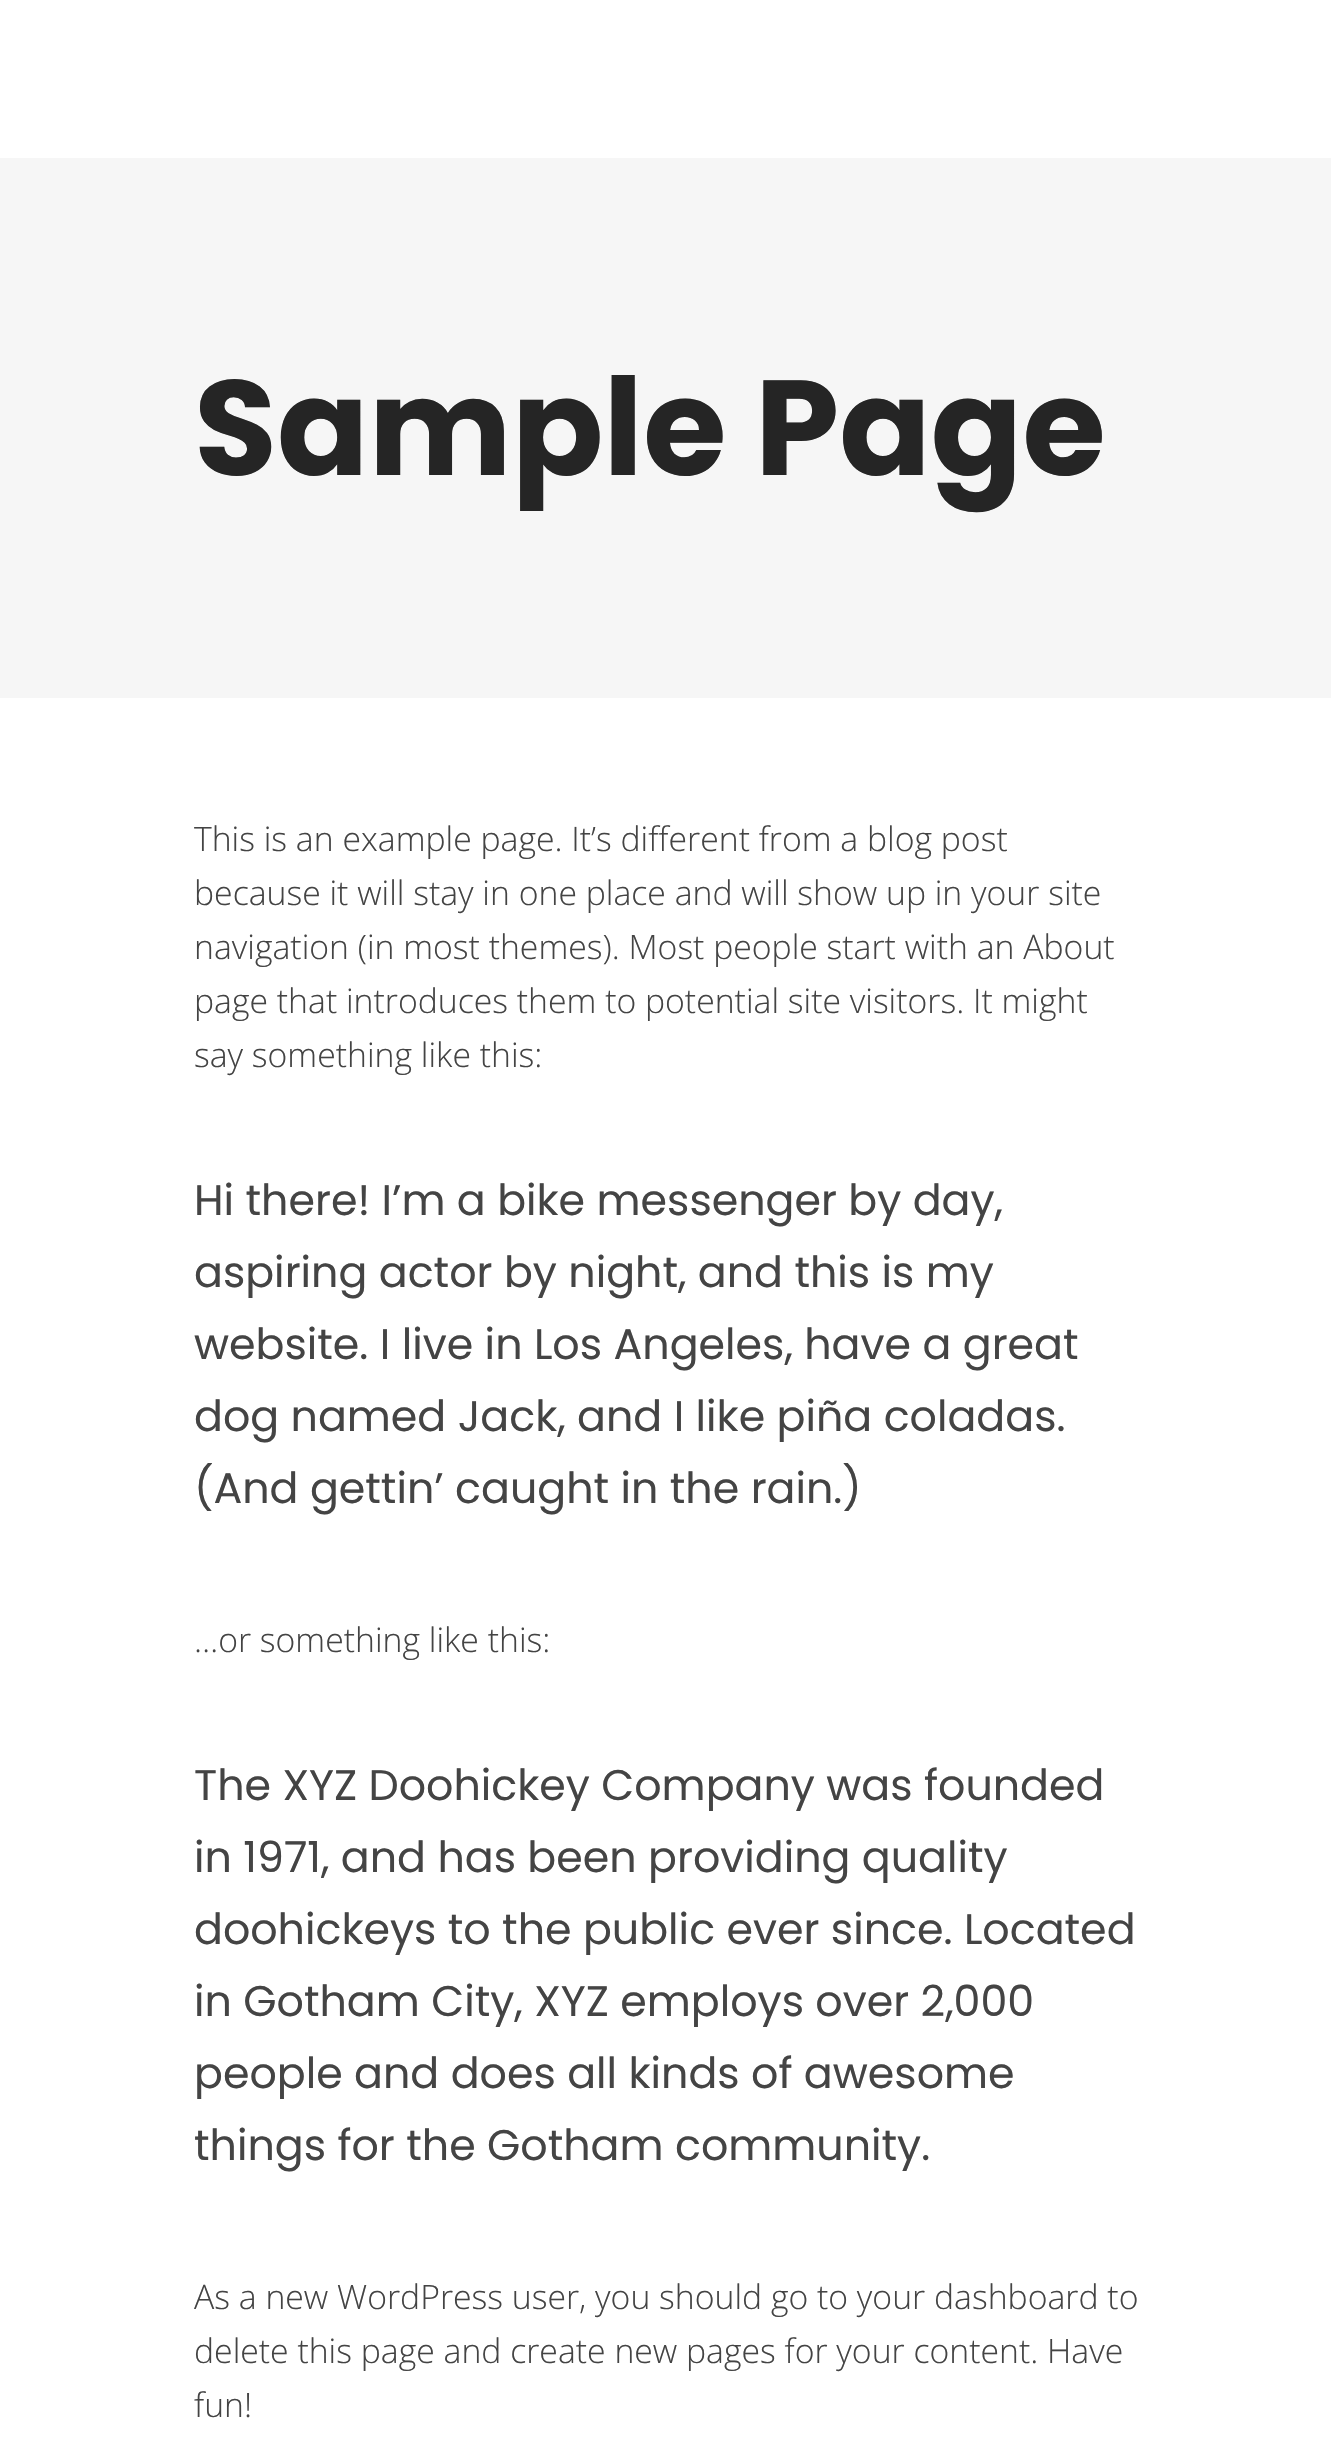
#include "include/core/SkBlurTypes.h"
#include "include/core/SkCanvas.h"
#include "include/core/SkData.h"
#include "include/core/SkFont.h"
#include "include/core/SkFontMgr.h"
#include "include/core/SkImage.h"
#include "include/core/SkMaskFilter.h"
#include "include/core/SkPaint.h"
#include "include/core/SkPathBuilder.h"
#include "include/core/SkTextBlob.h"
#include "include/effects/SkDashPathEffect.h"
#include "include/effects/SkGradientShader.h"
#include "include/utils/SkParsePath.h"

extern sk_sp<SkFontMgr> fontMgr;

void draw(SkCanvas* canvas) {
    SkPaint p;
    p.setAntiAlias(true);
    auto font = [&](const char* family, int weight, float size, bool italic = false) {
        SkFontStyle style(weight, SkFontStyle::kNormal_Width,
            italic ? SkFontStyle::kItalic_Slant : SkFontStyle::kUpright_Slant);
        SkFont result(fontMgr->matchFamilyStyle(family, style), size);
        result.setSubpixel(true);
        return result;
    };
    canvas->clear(0xFFFFFFFF);
    p.setColor(0xFFF6F6F6);
    canvas->drawRect(SkRect::MakeLTRB(0, 158, 1331, 698), p);
    auto font1 = font("Poppins", 700, 135);
    p.setColor(0xFF252525);
    canvas->drawString("Sample Page", 194, 475, font1, p);
    auto font2 = font("Open Sans", 300, 33.75f);
    p.setColor(0xFF444444);
    {
        const struct { const char* s; float x, y; } items[] = {
            {"This is an example page. It’s different from a blog post", 194, 851},
            {"because it will stay in one place and will show up in your site", 194, 905},
            {"navigation (in most themes). Most people start with an About", 194, 959},
            {"page that introduces them to potential site visitors. It might", 194, 1013},
            {"say something like this:", 194, 1067},
        };
        for (auto [s, x, y] : items) {
            canvas->drawString(s, x, y, font2, p);
        }
    }
    auto font3 = font("Poppins", 400, 42.75f);
    {
        const struct { const char* s; float x, y; } items[] = {
            {"Hi there! I’m a bike messenger by day,", 194, 1215},
            {"aspiring actor by night, and this is my", 194, 1287},
            {"website. I live in Los Angeles, have a great", 194, 1359},
            {"dog named Jack, and I like piña coladas.", 194, 1431},
            {"(And gettin’ caught in the rain.)", 194, 1503},
        };
        for (auto [s, x, y] : items) {
            canvas->drawString(s, x, y, font3, p);
        }
    }
    canvas->drawString("…or something like this:", 194, 1652, font2, p);
    {
        const struct { const char* s; float x, y; } items[] = {
            {"The XYZ Doohickey Company was founded", 194, 1800},
            {"in 1971, and has been providing quality", 194, 1872},
            {"doohickeys to the public ever since. Located", 194, 1944},
            {"in Gotham City, XYZ employs over 2,000", 194, 2016},
            {"people and does all kinds of awesome", 194, 2088},
            {"things for the Gotham community.", 194, 2160},
        };
        for (auto [s, x, y] : items) {
            canvas->drawString(s, x, y, font3, p);
        }
    }
    {
        const struct { const char* s; float x, y; } items[] = {
            {"As a new WordPress user, you should go to your dashboard to", 194, 2309},
            {"delete this page and create new pages for your content. Have", 194, 2363},
            {"fun!", 194, 2417},
        };
        for (auto [s, x, y] : items) {
            canvas->drawString(s, x, y, font2, p);
        }
    }
}
